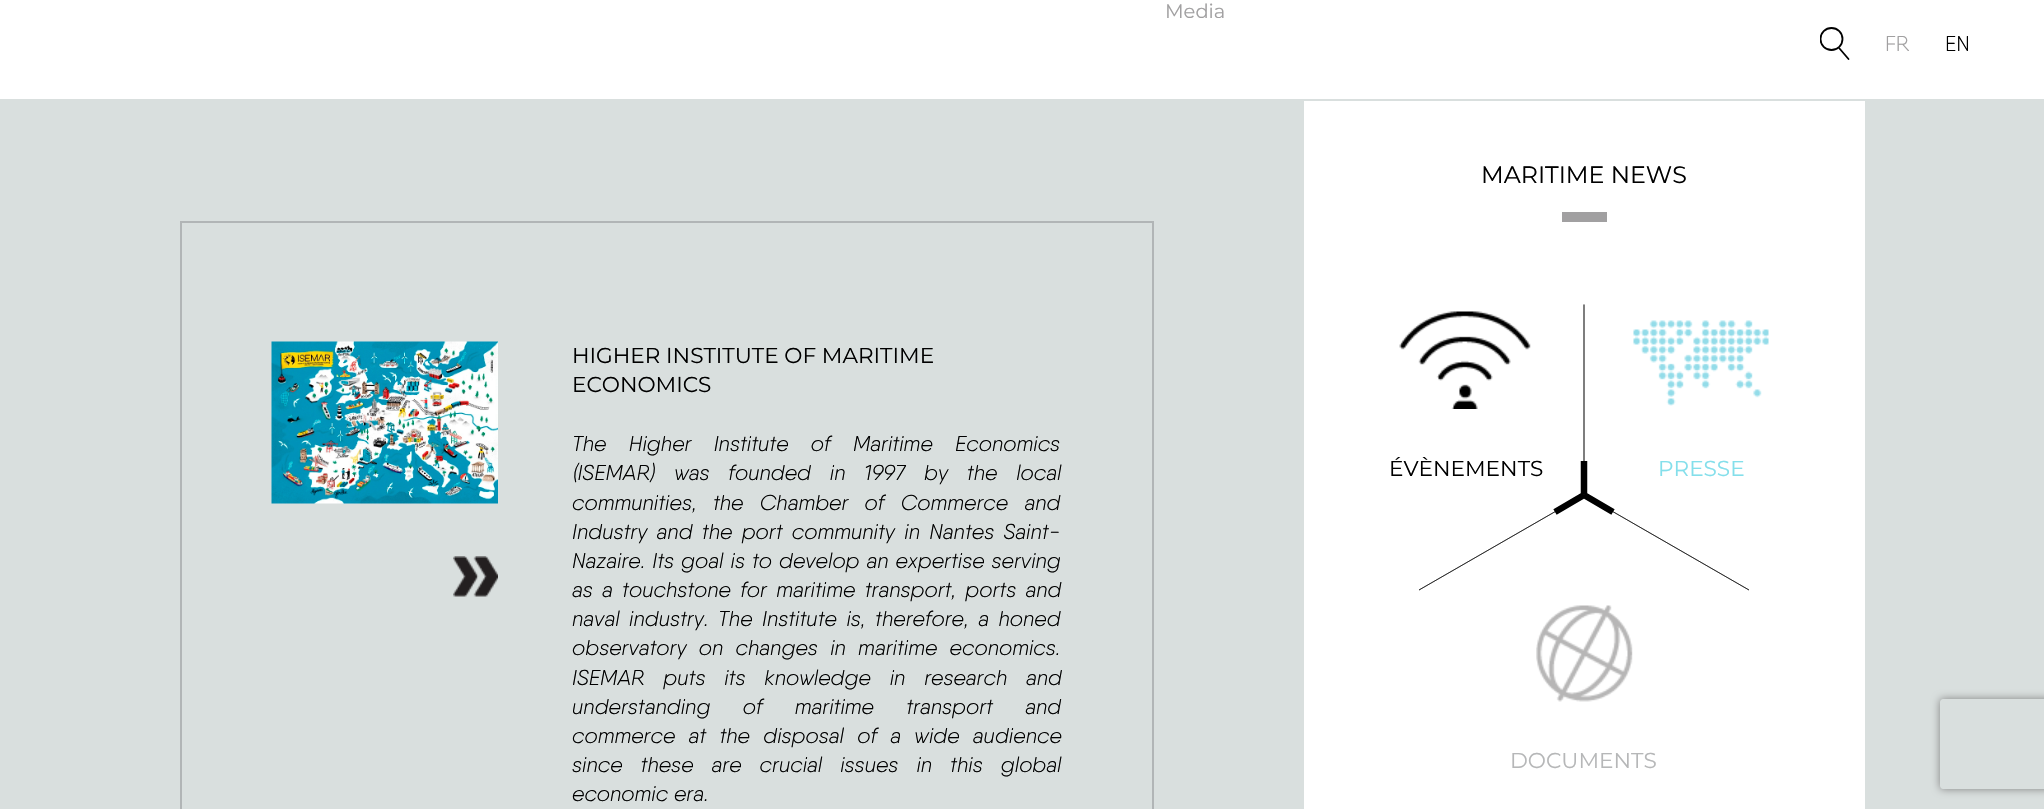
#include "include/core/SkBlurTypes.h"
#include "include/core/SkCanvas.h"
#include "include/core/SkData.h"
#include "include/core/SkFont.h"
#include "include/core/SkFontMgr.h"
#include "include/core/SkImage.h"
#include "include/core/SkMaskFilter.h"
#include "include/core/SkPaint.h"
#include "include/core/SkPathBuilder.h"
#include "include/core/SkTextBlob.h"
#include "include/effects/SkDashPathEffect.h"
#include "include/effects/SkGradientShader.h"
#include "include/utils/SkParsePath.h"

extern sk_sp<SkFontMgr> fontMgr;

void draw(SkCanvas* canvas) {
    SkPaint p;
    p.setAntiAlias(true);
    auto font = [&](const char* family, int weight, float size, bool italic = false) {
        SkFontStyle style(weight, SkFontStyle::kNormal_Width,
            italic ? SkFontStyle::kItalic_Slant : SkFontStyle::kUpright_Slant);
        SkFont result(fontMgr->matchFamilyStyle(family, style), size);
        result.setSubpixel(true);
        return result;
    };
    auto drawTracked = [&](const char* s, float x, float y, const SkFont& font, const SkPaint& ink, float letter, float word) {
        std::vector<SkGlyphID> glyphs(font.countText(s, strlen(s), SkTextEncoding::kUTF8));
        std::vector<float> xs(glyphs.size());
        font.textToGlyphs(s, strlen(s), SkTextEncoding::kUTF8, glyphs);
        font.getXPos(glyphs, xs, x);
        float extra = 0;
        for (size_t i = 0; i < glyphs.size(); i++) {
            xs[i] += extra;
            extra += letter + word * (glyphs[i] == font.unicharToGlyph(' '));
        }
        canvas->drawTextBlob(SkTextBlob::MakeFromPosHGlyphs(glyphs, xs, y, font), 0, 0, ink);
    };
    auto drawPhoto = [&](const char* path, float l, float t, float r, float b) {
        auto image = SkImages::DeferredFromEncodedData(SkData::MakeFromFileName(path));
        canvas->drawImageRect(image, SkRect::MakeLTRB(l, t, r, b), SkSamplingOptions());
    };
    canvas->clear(0xFFD9DFDE);
    p.setColor(0xFFFFFFFF);
    canvas->drawRect(SkRect::MakeLTRB(0, 0, 2044, 99), p);
    auto font1 = font("Montserrat", 100, 19.5f);
    p.setColor(0xFFA1A0A1);
    canvas->drawString("Media", 1165, 18, font1, p);
    canvas->save();
    canvas->clipRect(SkRect::MakeLTRB(1820, 27, 1850, 60));
    p.setStyle(SkPaint::kStroke_Style);
    p.setStrokeWidth(1.8f);
    p.setColor(0xFF000000);
    canvas->drawCircle(1831.5f, 39, 11, p);
    canvas->restore();
    p.setStrokeCap(SkPaint::kRound_Cap);
    canvas->drawPath(SkPathBuilder().moveTo(1839.5f, 48.5f).lineTo(1848.5f, 59).detach(), p);
    auto font2 = font("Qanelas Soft", 300, 21.6f);
    p.setStyle(SkPaint::kFill_Style);
    p.setColor(0xFFA1A0A1);
    canvas->drawString("FR", 1885, 51, font2, p);
    p.setColor(0xFF000000);
    canvas->drawString("EN", 1945, 51, font2, p);
    p.setStyle(SkPaint::kStroke_Style);
    p.setStrokeWidth(2);
    p.setStrokeCap(SkPaint::kButt_Cap);
    p.setColor(0xFFB1B5B6);
    canvas->drawRect(SkRect::MakeLTRB(181, 222, 1153, 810), p);
    drawPhoto("media/1.png", 271, 341, 498, 504);
    drawPhoto("media/2.png", 453, 556, 498, 597);
    auto font3 = font("Montserrat", 100, 21.6f);
    p.setStyle(SkPaint::kFill_Style);
    p.setColor(0xFF000000);
    canvas->drawString("HIGHER INSTITUTE OF MARITIME", 572, 363, font3, p);
    canvas->drawString("ECONOMICS", 572, 392, font3, p);
    auto font4 = font("Qanelas Soft", 300, 21.6f, true);
    drawTracked("The Higher Institute of Maritime Economics", 572, 451, font4, p, 0, 16.5f);
    drawTracked("(ISEMAR) was founded in 1997 by the local", 572, 480, font4, p, 0, 13);
    drawTracked("communities, the Chamber of Commerce and", 572, 510, font4, p, 0, 10.5f);
    drawTracked("Industry and the port community in Nantes Saint-", 572, 539, font4, p, 0, 3.5f);
    drawTracked("Nazaire. Its goal is to develop an expertise serving", 572, 568, font4, p, 0, 1.25f);
    drawTracked("as a touchstone for maritime transport, ports and", 572, 597, font4, p, 0, 3.5f);
    drawTracked("naval industry. The Institute is, therefore, a honed", 572, 626, font4, p, 0, 3.75f);
    drawTracked("observatory on changes in maritime economics.", 572, 655, font4, p, 0, 6.5f);
    drawTracked("ISEMAR puts its knowledge in research and", 572, 685, font4, p, 0, 13);
    drawTracked("understanding of maritime transport and", 572, 714, font4, p, 0, 26.5f);
    drawTracked("commerce at the disposal of a wide audience", 572, 743, font4, p, 0, 7.5f);
    drawTracked("since these are crucial issues in this global", 572, 772, font4, p, 0, 12.25f);
    canvas->drawString("economic era.", 572, 801, font4, p);
    p.setColor(0xFFFFFFFF);
    canvas->drawRect(SkRect::MakeLTRB(1304, 101, 1865, 809), p);
    auto font5 = font("Montserrat", 100, 23.75f);
    p.setColor(0xFF000000);
    canvas->drawString("MARITIME NEWS", 1481, 183, font5, p);
    p.setColor(0xFFA1A0A1);
    canvas->drawRect(SkRect::MakeLTRB(1562, 212, 1607, 222), p);
    p.setStyle(SkPaint::kStroke_Style);
    p.setStrokeWidth(0.6f);
    p.setColor(0xFF000000);
    canvas->drawPath(SkPathBuilder().moveTo(1584, 304.5f).lineTo(1584, 495).lineTo(1419, 590).detach(), p);
    canvas->drawPath(SkPathBuilder().moveTo(1419, 590).lineTo(1584, 495).lineTo(1749, 590).detach(), p);
    canvas->drawPath(SkPathBuilder().moveTo(1749, 590).lineTo(1584, 495).lineTo(1584, 304.5f).detach(), p);
    p.setStrokeWidth(6.5f);
    canvas->drawPath(SkPathBuilder().moveTo(1584, 494.5f).lineTo(1584, 461).moveTo(1613, 512).lineTo(1584, 495).moveTo(1555, 512).lineTo(1584, 495).detach(), p);
    drawPhoto("media/3.png", 1399, 311, 1531, 409);
    p.setStyle(SkPaint::kFill_Style);
    canvas->drawString("ÉVÈNEMENTS", 1389, 476, font3, p);
    drawPhoto("media/4.png", 1633, 320, 1769, 406);
    p.setColor(0xFF84DFEB);
    canvas->drawString("PRESSE", 1658, 476, font3, p);
    drawPhoto("media/5.png", 1536, 605, 1633, 702);
    p.setColor(0xFFB6B7B8);
    canvas->drawString("DOCUMENTS", 1510, 768, font3, p);
    canvas->save();
    canvas->clipPath(SkPathBuilder(SkPathFillType::kEvenOdd).moveTo(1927, 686).lineTo(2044, 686).lineTo(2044, 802).lineTo(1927, 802).close().moveTo(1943, 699).lineTo(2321, 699).cubicTo(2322.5f, 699, 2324, 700.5f, 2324, 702).lineTo(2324, 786).cubicTo(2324, 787.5f, 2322.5f, 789, 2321, 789).lineTo(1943, 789).cubicTo(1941.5f, 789, 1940, 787.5f, 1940, 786).lineTo(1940, 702).cubicTo(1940, 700.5f, 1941.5f, 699, 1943, 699).close().detach(), true);
    p.setColor(0xFF808080);
    p.setMaskFilter(SkMaskFilter::MakeBlur(kNormal_SkBlurStyle, 4));
    canvas->drawRoundRect(SkRect::MakeLTRB(1940, 699, 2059, 789), 3, 3, p);
    p.setMaskFilter(nullptr);
    canvas->restore();
}
